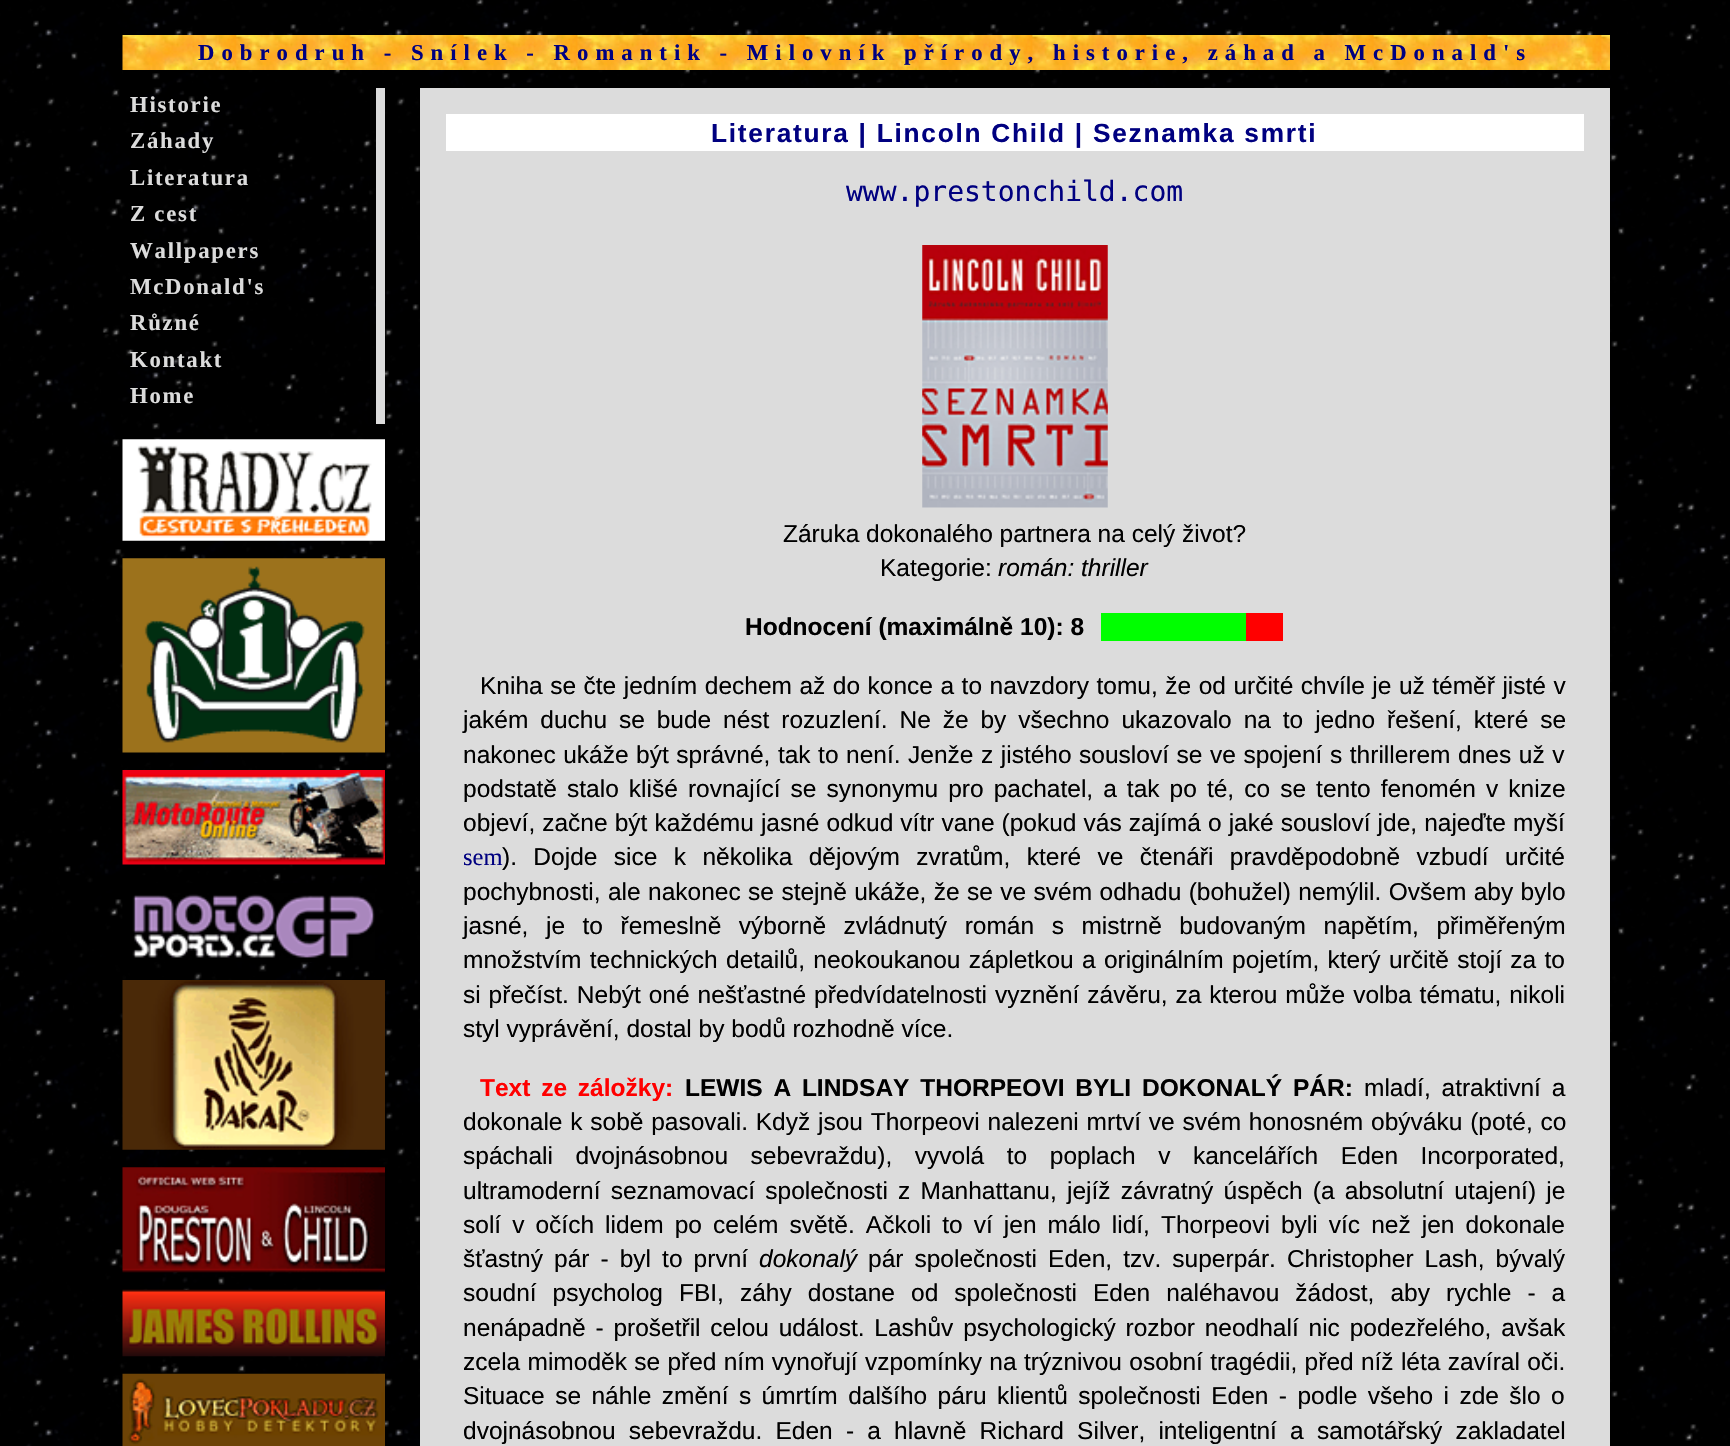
#include "include/core/SkBlurTypes.h"
#include "include/core/SkCanvas.h"
#include "include/core/SkData.h"
#include "include/core/SkFont.h"
#include "include/core/SkFontMgr.h"
#include "include/core/SkImage.h"
#include "include/core/SkMaskFilter.h"
#include "include/core/SkPaint.h"
#include "include/core/SkPathBuilder.h"
#include "include/core/SkTextBlob.h"
#include "include/effects/SkDashPathEffect.h"
#include "include/effects/SkGradientShader.h"
#include "include/utils/SkParsePath.h"

extern sk_sp<SkFontMgr> fontMgr;

void draw(SkCanvas* canvas) {
    SkPaint p;
    p.setAntiAlias(true);
    auto font = [&](const char* family, int weight, float size, bool italic = false) {
        SkFontStyle style(weight, SkFontStyle::kNormal_Width,
            italic ? SkFontStyle::kItalic_Slant : SkFontStyle::kUpright_Slant);
        SkFont result(fontMgr->matchFamilyStyle(family, style), size);
        result.setSubpixel(true);
        return result;
    };
    auto drawTracked = [&](const char* s, float x, float y, const SkFont& font, const SkPaint& ink, float letter, float word) {
        std::vector<SkGlyphID> glyphs(font.countText(s, strlen(s), SkTextEncoding::kUTF8));
        std::vector<float> xs(glyphs.size());
        font.textToGlyphs(s, strlen(s), SkTextEncoding::kUTF8, glyphs);
        font.getXPos(glyphs, xs, x);
        float extra = 0;
        for (size_t i = 0; i < glyphs.size(); i++) {
            xs[i] += extra;
            extra += letter + word * (glyphs[i] == font.unicharToGlyph(' '));
        }
        canvas->drawTextBlob(SkTextBlob::MakeFromPosHGlyphs(glyphs, xs, y, font), 0, 0, ink);
    };
    auto drawPhoto = [&](const char* path, float l, float t, float r, float b) {
        auto image = SkImages::DeferredFromEncodedData(SkData::MakeFromFileName(path));
        canvas->drawImageRect(image, SkRect::MakeLTRB(l, t, r, b), SkSamplingOptions());
    };
    canvas->clear(0xFFFFFFFF);
    drawPhoto("media/1.png", 0, 0, 1730, 1446);
    p.setColor(0xFF000000);
    canvas->drawRect(SkRect::MakeLTRB(126, 0, 1598, 35), p);
    drawPhoto("media/2.png", 126, 0, 1598, 35);
    drawPhoto("media/3.png", 122, 35, 1610, 70);
    auto font1 = font("Liberation Serif", 700, 22.75f);
    p.setColor(0xFF000080);
    drawTracked("Dobrodruh - Snílek - Romantik - Milovník přírody, historie, záhad a McDonald's", 198, 60, font1, p, 7, 0);
    p.setColor(0xFF000000);
    canvas->drawRect(SkRect::MakeLTRB(123, 70, 1597, 88), p);
    drawPhoto("media/4.png", 152, 70, 1594, 88);
    drawPhoto("media/6.png", 123, 88, 420, 1446);
    drawPhoto("media/5.png", 123, 88, 376, 424);
    p.setColor(0xFFDCDCDC);
    canvas->drawRect(SkRect::MakeLTRB(376, 88, 385, 424), p);
    {
        const struct { const char* s; float x, y; } items[] = {
            {"Historie", 130, 112},
            {"Záhady", 130, 148},
            {"Literatura", 130, 185},
            {"Z cest", 130, 221},
            {"Wallpapers", 130, 258},
            {"McDonald's", 130, 294},
            {"Různé", 130, 330},
            {"Kontakt", 130, 367},
            {"Home", 130, 403},
        };
        for (auto [s, x, y] : items) {
            drawTracked(s, x, y, font1, p, 1.75f, 0);
        }
    }
    canvas->drawRect(SkRect::MakeLTRB(420, 88, 1610, 1446), p);
    drawPhoto("media/7.png", 122, 439, 385, 541);
    drawPhoto("media/8.png", 122, 558, 385, 753);
    drawPhoto("media/9.png", 122, 770, 385, 865);
    drawPhoto("media/10.png", 122, 883, 375, 962);
    drawPhoto("media/11.png", 122, 980, 385, 1150);
    drawPhoto("media/12.png", 122, 1167, 385, 1273);
    drawPhoto("media/13.png", 122, 1289, 385, 1357);
    drawPhoto("media/14.png", 122, 1373, 385, 1446);
    p.setColor(0xFFFFFFFF);
    canvas->drawRect(SkRect::MakeLTRB(446, 114, 1584, 151), p);
    auto font2 = font("Liberation Sans", 700, 26.25f);
    p.setColor(0xFF000080);
    drawTracked("Literatura | Lincoln Child | Seznamka smrti", 711, 142, font2, p, 1.75f, 0);
    auto font3 = font("DejaVu Sans Mono", 400, 28);
    canvas->drawString("www.prestonchild.com", 846, 201, font3, p);
    drawPhoto("media/15.png", 922, 245, 1108, 508);
    auto font4 = font("Liberation Sans", 400, 24.5f);
    p.setColor(0xFF000000);
    canvas->drawString("Záruka dokonalého partnera na celý život?", 783, 542, font4, p);
    canvas->drawString("Kategorie:", 880, 576, font4, p);
    auto font5 = font("Liberation Sans", 400, 24.5f, true);
    canvas->drawString("román: thriller", 998, 576, font5, p);
    auto font6 = font("Liberation Sans", 700, 24.5f);
    canvas->drawString("Hodnocení (maximálně 10): 8", 745, 635, font6, p);
    p.setColor(0xFF00FF00);
    canvas->drawRect(SkRect::MakeLTRB(1101, 613, 1246, 641), p);
    p.setColor(0xFFFF0000);
    canvas->drawRect(SkRect::MakeLTRB(1246, 613, 1283, 641), p);
    p.setColor(0xFF000000);
    drawTracked("Kniha se čte jedním dechem až do konce a to navzdory tomu, že od určité chvíle je už téměř jisté v", 480, 694, font4, p, 0, 0.7f);
    drawTracked("jakém duchu se bude nést rozuzlení. Ne že by všechno ukazovalo na to jedno řešení, které se", 463, 728, font4, p, 0, 5.1f);
    drawTracked("nakonec ukáže být správné, tak to není.", 463, 763, font4, p, 0, 0.75f);
    drawTracked("Jenže z jistého sousloví se ve spojení s thrillerem dnes už v", 908, 763, font4, p, 0, 0.75f);
    drawTracked("podstatě stalo klišé rovnající se synonymu pro pachatel, a tak po té, co se tento fenomén v knize", 463, 797, font4, p, 0, 3.25f);
    drawTracked("objeví, začne být každému jasné odkud vítr vane (pokud vás zajímá o jaké sousloví jde, najeďte myší", 463, 831, font4, p, 0, 0.25f);
    auto font7 = font("Liberation Serif", 400, 24.5f);
    p.setColor(0xFF000080);
    canvas->drawString("sem", 463, 865, font7, p);
    p.setColor(0xFF000000);
    drawTracked("). Dojde sice k několika dějovým zvratům, které ve čtenáři pravděpodobně vzbudí určité", 502, 865, font4, p, 0, 9.6f);
    drawTracked("pochybnosti, ale nakonec se stejně ukáže, že se ve svém odhadu (bohužel) nemýlil. Ovšem aby bylo", 463, 900, font4, p, 0, 0.6f);
    drawTracked("jasné, je to řemeslně výborně zvládnutý román s mistrně budovaným napětím, přiměřeným", 463, 934, font4, p, 0, 10.75f);
    drawTracked("množstvím technických detailů, neokoukanou zápletkou a originálním pojetím, který určitě stojí za to", 463, 968, font4, p, 0, 1.5f);
    drawTracked("si přečíst. Nebýt oné nešťastné předvídatelnosti vyznění závěru, za kterou může volba tématu, nikoli", 463, 1003, font4, p, 0, 1.1f);
    canvas->drawString("styl vyprávění, dostal by bodů rozhodně více.", 463, 1037, font4, p);
    p.setColor(0xFFFF0000);
    drawTracked("Text ze záložky:", 480, 1096, font6, p, 0, 4);
    p.setColor(0xFF000000);
    drawTracked("LEWIS A LINDSAY THORPEOVI BYLI DOKONALÝ PÁR:", 685, 1096, font6, p, 0, 4);
    drawTracked("mladí, atraktivní a", 1364, 1096, font4, p, 0, 4);
    drawTracked("dokonale k sobě pasovali. Když jsou Thorpeovi nalezeni mrtví ve svém honosném obýváku (poté, co", 463, 1130, font4, p, 0, 1);
    drawTracked("spáchali dvojnásobnou sebevraždu), vyvolá to poplach v kancelářích Eden Incorporated,", 463, 1164, font4, p, 0, 15.75f);
    drawTracked("ultramoderní seznamovací společnosti z Manhattanu, jejíž závratný úspěch (a absolutní utajení) je", 463, 1199, font4, p, 0, 3.4f);
    drawTracked("solí v očích lidem po celém světě. Ačkoli to ví jen málo lidí, Thorpeovi byli víc než jen dokonale", 463, 1233, font4, p, 0, 4.25f);
    drawTracked("šťastný pár - byl to první", 463, 1267, font4, p, 0, 4.25f);
    canvas->drawString("dokonalý", 759, 1267, font5, p);
    drawTracked("pár společnosti Eden, tzv. superpár. Christopher Lash, bývalý", 868, 1267, font4, p, 0, 4.25f);
    drawTracked("soudní psycholog FBI, záhy dostane od společnosti Eden naléhavou žádost, aby rychle - a", 463, 1301, font4, p, 0, 9.25f);
    drawTracked("nenápadně - prošetřil celou událost. Lashův psychologický rozbor neodhalí nic podezřelého, avšak", 463, 1336, font4, p, 0, 3);
    drawTracked("zcela mimoděk se před ním vynořují vzpomínky na trýznivou osobní tragédii, před níž léta zavíral oči.", 463, 1370, font4, p, 0, 0.5f);
    drawTracked("Situace se náhle změní s úmrtím dalšího páru klientů společnosti Eden - podle všeho i zde šlo o", 463, 1404, font4, p, 0, 3.6f);
    drawTracked("dvojnásobnou sebevraždu. Eden - a hlavně Richard Silver, inteligentní a samotářský zakladatel", 463, 1439, font4, p, 0, 6.4f);
}
